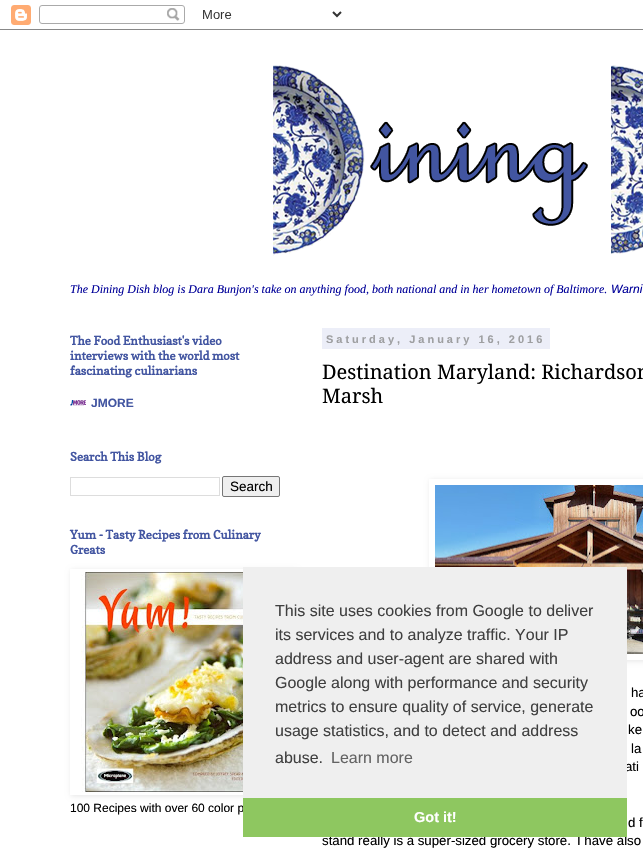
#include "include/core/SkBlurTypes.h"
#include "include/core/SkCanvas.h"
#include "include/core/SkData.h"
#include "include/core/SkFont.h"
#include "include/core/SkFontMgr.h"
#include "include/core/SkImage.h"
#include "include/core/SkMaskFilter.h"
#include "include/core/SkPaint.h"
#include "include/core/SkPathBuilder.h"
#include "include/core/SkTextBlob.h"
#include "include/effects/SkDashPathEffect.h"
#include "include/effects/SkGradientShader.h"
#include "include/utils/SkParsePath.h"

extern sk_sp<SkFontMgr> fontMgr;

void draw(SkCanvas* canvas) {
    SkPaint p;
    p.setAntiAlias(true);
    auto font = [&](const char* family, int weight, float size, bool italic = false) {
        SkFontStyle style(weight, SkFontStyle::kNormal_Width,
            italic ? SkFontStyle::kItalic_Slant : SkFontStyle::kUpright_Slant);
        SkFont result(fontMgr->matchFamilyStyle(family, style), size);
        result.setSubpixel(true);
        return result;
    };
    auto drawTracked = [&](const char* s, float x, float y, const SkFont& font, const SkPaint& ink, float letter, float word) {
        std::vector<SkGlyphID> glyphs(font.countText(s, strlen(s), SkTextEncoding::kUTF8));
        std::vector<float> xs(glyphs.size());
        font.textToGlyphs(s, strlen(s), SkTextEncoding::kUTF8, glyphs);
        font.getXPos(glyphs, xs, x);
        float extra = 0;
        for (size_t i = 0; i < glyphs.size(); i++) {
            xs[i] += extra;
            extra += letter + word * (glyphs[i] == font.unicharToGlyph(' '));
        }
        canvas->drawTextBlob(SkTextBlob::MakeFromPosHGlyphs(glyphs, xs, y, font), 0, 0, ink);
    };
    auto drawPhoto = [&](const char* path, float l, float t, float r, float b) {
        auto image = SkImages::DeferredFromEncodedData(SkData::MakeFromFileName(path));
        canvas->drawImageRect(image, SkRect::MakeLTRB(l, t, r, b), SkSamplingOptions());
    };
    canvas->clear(0xFFFFFFFF);
    drawPhoto("media/1.png", 0, 5, 643, 30);
    drawPhoto("media/2.png", 273, 65, 643, 256);
    auto font1 = font("Liberation Serif", 400, 12, true);
    p.setColor(0xFF000099);
    canvas->drawString("The Dining Dish blog is Dara Bunjon's take on anything food, both national and in her hometown of Baltimore.", 70, 293, font1, p);
    auto font2 = font("Liberation Sans", 400, 12, true);
    canvas->drawString("Warni", 611, 293, font2, p);
    auto font3 = font("Copse", 700, 12);
    p.setColor(0xFF4255A1);
    {
        const struct { const char* s; float x, y; } items[] = {
            {"The Food Enthusiast's video", 70, 345},
            {"interviews with the world most", 70, 360},
            {"fascinating culinarians", 70, 375},
        };
        for (auto [s, x, y] : items) {
            canvas->drawString(s, x, y, font3, p);
        }
    }
    drawPhoto("media/3.png", 70, 400, 86, 406);
    auto font4 = font("Liberation Sans", 700, 12);
    canvas->drawString("JMORE", 91, 407, font4, p);
    canvas->drawString("Search This Blog", 70, 461, font3, p);
    p.setStyle(SkPaint::kStroke_Style);
    p.setStrokeWidth(1);
    p.setColor(0xFFDDDDDD);
    canvas->drawRect(SkRect::MakeLTRB(70.5f, 477.5f, 219.5f, 495.5f), p);
    p.setStyle(SkPaint::kFill_Style);
    p.setColor(0xFFEFEFEF);
    canvas->drawRoundRect(SkRect::MakeLTRB(222.5f, 476.5f, 279.5f, 496.5f), 1.5f, 1.5f, p);
    p.setStyle(SkPaint::kStroke_Style);
    p.setColor(0xFF767676);
    canvas->drawRoundRect(SkRect::MakeLTRB(222.5f, 476.5f, 279.5f, 496.5f), 1.5f, 1.5f, p);
    auto font5 = font("Liberation Sans", 400, 13.5f);
    p.setStyle(SkPaint::kFill_Style);
    p.setColor(0xFF000000);
    canvas->drawString("Search", 230, 491, font5, p);
    p.setColor(0xFF4255A1);
    canvas->drawString("Yum - Tasty Recipes from Culinary", 70, 539, font3, p);
    canvas->drawString("Greats", 70, 554, font3, p);
    canvas->save();
    canvas->clipPath(SkPathBuilder(SkPathFillType::kEvenOdd).moveTo(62, 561).lineTo(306, 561).lineTo(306, 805).lineTo(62, 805).close().moveTo(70, 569).lineTo(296, 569).lineTo(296, 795).lineTo(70, 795).close().detach(), true);
    p.setColor(0x1A000000);
    p.setMaskFilter(SkMaskFilter::MakeBlur(kNormal_SkBlurStyle, 2.5f));
    canvas->drawRect(SkRect::MakeLTRB(71, 570, 297, 796), p);
    p.setMaskFilter(nullptr);
    canvas->restore();
    drawPhoto("media/4.png", 81, 572, 243, 792);
    auto font6 = font("Liberation Sans", 400, 12);
    p.setColor(0xFF000000);
    canvas->drawString("100 Recipes with over 60 color p", 70, 812, font6, p);
    p.setColor(0xFFECEEF8);
    canvas->drawRect(SkRect::MakeLTRB(322, 328, 550, 349), p);
    auto font7 = font("Liberation Sans", 700, 11);
    p.setColor(0xFF9E9FA1);
    drawTracked("Saturday, January 16, 2016", 326, 343, font7, p, 3, 0);
    auto font8 = font("Droid Serif", 400, 20);
    p.setColor(0xFF000000);
    canvas->drawString("Destination Maryland: Richardson", 322, 379, font8, p);
    canvas->drawString("Marsh", 322, 403, font8, p);
    canvas->save();
    canvas->clipPath(SkPathBuilder(SkPathFillType::kEvenOdd).moveTo(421, 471).lineTo(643, 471).lineTo(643, 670).lineTo(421, 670).close().moveTo(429, 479).lineTo(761, 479).lineTo(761, 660).lineTo(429, 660).close().detach(), true);
    p.setColor(0x1A000000);
    p.setMaskFilter(SkMaskFilter::MakeBlur(kNormal_SkBlurStyle, 2.5f));
    canvas->drawRect(SkRect::MakeLTRB(430, 480, 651, 661), p);
    p.setMaskFilter(nullptr);
    canvas->restore();
    drawPhoto("media/5.png", 435, 485, 643, 654);
    auto font9 = font("Liberation Sans", 400, 13.25f);
    p.setColor(0xFF000000);
    {
        const struct { const char* s; float x, y; } items[] = {
            {"ha", 631, 697},
            {"oo", 630, 716},
            {"ke", 628, 734},
            {"la", 631, 753},
            {"ati", 625, 771},
            {"d f", 628, 827},
            {"stand really is a super-sized grocery store.", 322, 845},
            {"I have also", 577, 845},
        };
        for (auto [s, x, y] : items) {
            canvas->drawString(s, x, y, font9, p);
        }
    }
    p.setColor(0xFFEFEFEF);
    canvas->drawRect(SkRect::MakeLTRB(243, 567, 627, 798), p);
    auto font10 = font("Liberation Sans", 400, 16);
    p.setColor(0xFF404040);
    {
        const struct { const char* s; float x, y; } items[] = {
            {"This site uses cookies from Google to deliver", 275, 616},
            {"its services and to analyze traffic. Your IP", 275, 640},
            {"address and user-agent are shared with", 275, 664},
            {"Google along with performance and security", 275, 688},
            {"metrics to ensure quality of service, generate", 275, 712},
            {"usage statistics, and to detect and address", 275, 736},
            {"abuse.", 275, 763},
        };
        for (auto [s, x, y] : items) {
            canvas->drawString(s, x, y, font10, p);
        }
    }
    p.setColor(0xFF636363);
    canvas->drawString("Learn more", 331, 763, font10, p);
    p.setColor(0xFF8EC760);
    canvas->drawRect(SkRect::MakeLTRB(243, 798, 627, 837), p);
    auto font11 = font("Liberation Sans", 700, 14.5f);
    p.setColor(0xFFFFFFFF);
    canvas->drawString("Got it!", 414, 822, font11, p);
}
